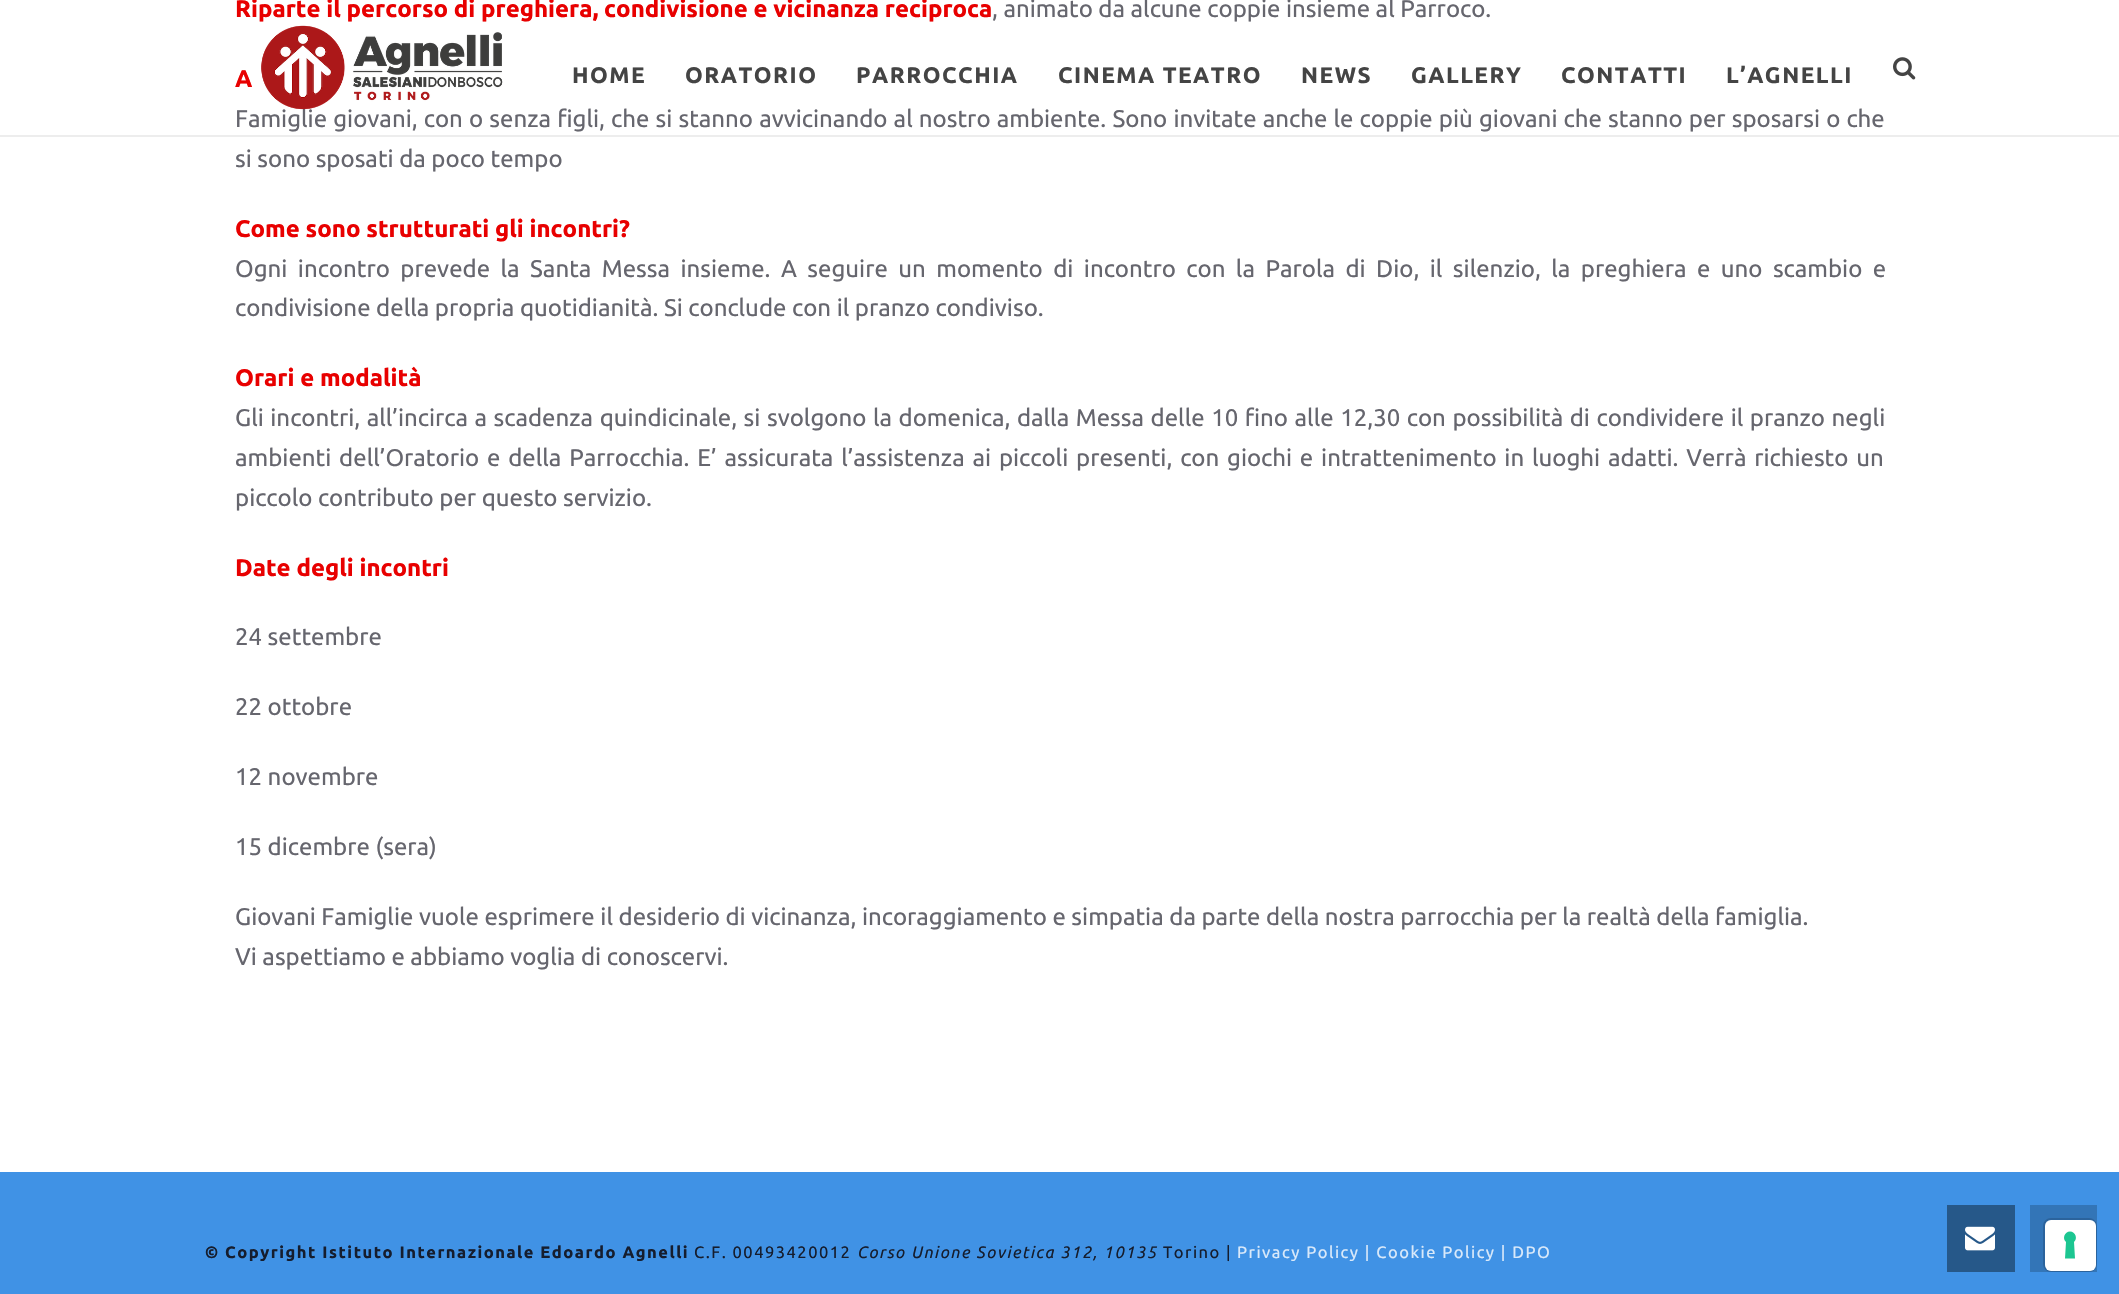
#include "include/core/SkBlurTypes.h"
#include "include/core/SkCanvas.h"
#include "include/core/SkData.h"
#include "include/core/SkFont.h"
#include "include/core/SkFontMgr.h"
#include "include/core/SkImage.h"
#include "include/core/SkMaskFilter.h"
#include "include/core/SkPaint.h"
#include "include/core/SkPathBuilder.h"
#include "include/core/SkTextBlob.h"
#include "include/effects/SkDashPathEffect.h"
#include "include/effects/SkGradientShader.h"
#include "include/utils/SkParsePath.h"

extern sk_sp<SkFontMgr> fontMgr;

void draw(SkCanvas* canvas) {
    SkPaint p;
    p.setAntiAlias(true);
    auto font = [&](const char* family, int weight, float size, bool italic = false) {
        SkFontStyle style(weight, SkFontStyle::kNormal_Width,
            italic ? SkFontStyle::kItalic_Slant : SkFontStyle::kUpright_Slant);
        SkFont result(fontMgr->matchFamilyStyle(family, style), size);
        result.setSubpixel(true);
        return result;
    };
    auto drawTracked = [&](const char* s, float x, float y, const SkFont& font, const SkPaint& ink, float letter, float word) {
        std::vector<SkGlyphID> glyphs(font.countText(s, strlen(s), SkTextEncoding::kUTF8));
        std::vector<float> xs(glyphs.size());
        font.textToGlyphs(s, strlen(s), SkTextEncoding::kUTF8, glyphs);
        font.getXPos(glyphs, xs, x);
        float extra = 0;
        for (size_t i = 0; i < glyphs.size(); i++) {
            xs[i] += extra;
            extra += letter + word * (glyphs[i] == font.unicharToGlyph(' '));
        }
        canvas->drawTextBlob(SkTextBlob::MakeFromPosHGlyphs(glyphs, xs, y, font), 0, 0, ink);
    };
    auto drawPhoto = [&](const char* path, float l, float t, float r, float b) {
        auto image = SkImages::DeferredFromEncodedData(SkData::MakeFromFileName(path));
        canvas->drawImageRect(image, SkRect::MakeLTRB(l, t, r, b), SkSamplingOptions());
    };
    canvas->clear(0xFFFFFFFF);
    auto font1 = font("Ubuntu", 700, 24);
    p.setColor(0xFFE80000);
    canvas->drawString("Riparte il percorso di preghiera, condivisione e vicinanza reciproca", 235, 17, font1, p);
    auto font2 = font("Ubuntu", 400, 24);
    p.setColor(0xFF66666E);
    canvas->drawString(", animato da alcune coppie insieme al Parroco.", 992, 17, font2, p);
    p.setColor(0xFFE80000);
    canvas->drawString("A", 235, 87, font1, p);
    p.setColor(0xFF66666E);
    drawTracked("Famiglie giovani, con o senza figli, che si stanno avvicinando al nostro ambiente. Sono invitate anche le coppie più giovani che stanno per sposarsi o che", 235, 127, font2, p, 0, 0.6f);
    canvas->drawString("si sono sposati da poco tempo", 235, 167, font2, p);
    p.setColor(0xFFE80000);
    canvas->drawString("Come sono strutturati gli incontri?", 235, 237, font1, p);
    p.setColor(0xFF66666E);
    drawTracked("Ogni incontro prevede la Santa Messa insieme. A seguire un momento di incontro con la Parola di Dio, il silenzio, la preghiera e uno scambio e", 235, 277, font2, p, 0, 4.9f);
    canvas->drawString("condivisione della propria quotidianità. Si conclude con il pranzo condiviso.", 235, 316, font2, p);
    p.setColor(0xFFE80000);
    canvas->drawString("Orari e modalità", 235, 386, font1, p);
    p.setColor(0xFF66666E);
    drawTracked("Gli incontri, all’incirca a scadenza quindicinale, si svolgono la domenica, dalla Messa delle 10 fino alle 12,30 con possibilità di condividere il pranzo negli", 235, 426, font2, p, 0, 1);
    drawTracked("ambienti dell’Oratorio e della Parrocchia. E’ assicurata l’assistenza ai piccoli presenti, con giochi e intrattenimento in luoghi adatti. Verrà richiesto un", 235, 466, font2, p, 0, 2.25f);
    canvas->drawString("piccolo contributo per questo servizio.", 235, 506, font2, p);
    p.setColor(0xFFE80000);
    canvas->drawString("Date degli incontri", 235, 576, font1, p);
    p.setColor(0xFF66666E);
    {
        const struct { const char* s; float x, y; } items[] = {
            {"24 settembre", 235, 645},
            {"22 ottobre", 235, 715},
            {"12 novembre", 235, 785},
            {"15 dicembre (sera)", 235, 855},
            {"Giovani Famiglie vuole esprimere il desiderio di vicinanza, incoraggiamento e simpatia da parte della nostra parrocchia per la realtà della famiglia.", 235, 925},
            {"Vi aspettiamo e abbiamo voglia di conoscervi.", 235, 965},
        };
        for (auto [s, x, y] : items) {
            canvas->drawString(s, x, y, font2, p);
        }
    }
    p.setColor(0xFFEDEDED);
    canvas->drawRect(SkRect::MakeLTRB(0, 135, 2119, 137), p);
    drawPhoto("media/1.png", 261, 25, 503, 110);
    auto font3 = font("Ubuntu", 700, 22.5f);
    p.setColor(0xFF444444);
    {
        const struct { const char* s; float x, y; } items[] = {
            {"HOME", 572, 83},
            {"ORATORIO", 685, 83},
            {"PARROCCHIA", 856, 83},
            {"CINEMA TEATRO", 1058, 83},
            {"NEWS", 1301, 83},
            {"GALLERY", 1411, 83},
            {"CONTATTI", 1561, 83},
            {"L’AGNELLI", 1726, 83},
        };
        for (auto [s, x, y] : items) {
            drawTracked(s, x, y, font3, p, 1.5f, 0);
        }
    }
    drawPhoto("media/2.png", 1893, 57, 1916, 80);
    p.setColor(0xFF4092E5);
    canvas->drawRect(SkRect::MakeLTRB(0, 1172, 2119, 1294), p);
    auto font4 = font("Ubuntu", 700, 16.5f);
    p.setColor(0xFF151D2E);
    drawTracked("© Copyright Istituto Internazionale Edoardo Agnelli", 205, 1258, font4, p, 1.5f, 0);
    auto font5 = font("Ubuntu", 400, 16.5f);
    drawTracked("C.F. 00493420012", 694, 1258, font5, p, 1.5f, 0);
    auto font6 = font("Ubuntu", 400, 16.5f, true);
    drawTracked("Corso Unione Sovietica 312, 10135", 857, 1258, font6, p, 1.5f, 0);
    drawTracked("Torino |", 1163, 1258, font5, p, 1.5f, 0);
    p.setColor(0xFFD9E9FA);
    drawTracked("Privacy Policy | Cookie Policy | DPO", 1237, 1258, font5, p, 1.5f, 0);
    p.setColor(0xFF265889);
    canvas->drawRect(SkRect::MakeLTRB(1947, 1205, 2015, 1272), p);
    drawPhoto("media/3.png", 1965, 1226, 1995, 1251);
    p.setColor(0xFF3375B7);
    canvas->drawRect(SkRect::MakeLTRB(2030, 1205, 2097, 1272), p);
    p.setStyle(SkPaint::kStroke_Style);
    p.setStrokeWidth(2);
    p.setColor(0xFF2B639C);
    canvas->drawRoundRect(SkRect::MakeLTRB(2044, 1219, 2096, 1271), 7, 7, p);
    p.setStyle(SkPaint::kFill_Style);
    p.setColor(0xFFFFFFFF);
    canvas->drawRoundRect(SkRect::MakeLTRB(2045, 1220, 2096, 1271), 6, 6, p);
    p.setColor(0xFF1CC691);
    canvas->drawPath(SkPathBuilder(SkPathFillType::kEvenOdd).moveTo(2070, 1231.5f).cubicTo(2075.5f, 1231.5f, 2078, 1238.5f, 2074, 1242).lineTo(2075, 1258.5f).lineTo(2065, 1258.5f).lineTo(2066, 1242).cubicTo(2062, 1238.5f, 2064.5f, 1231.5f, 2070, 1231.5f).close().detach(), p);
}
